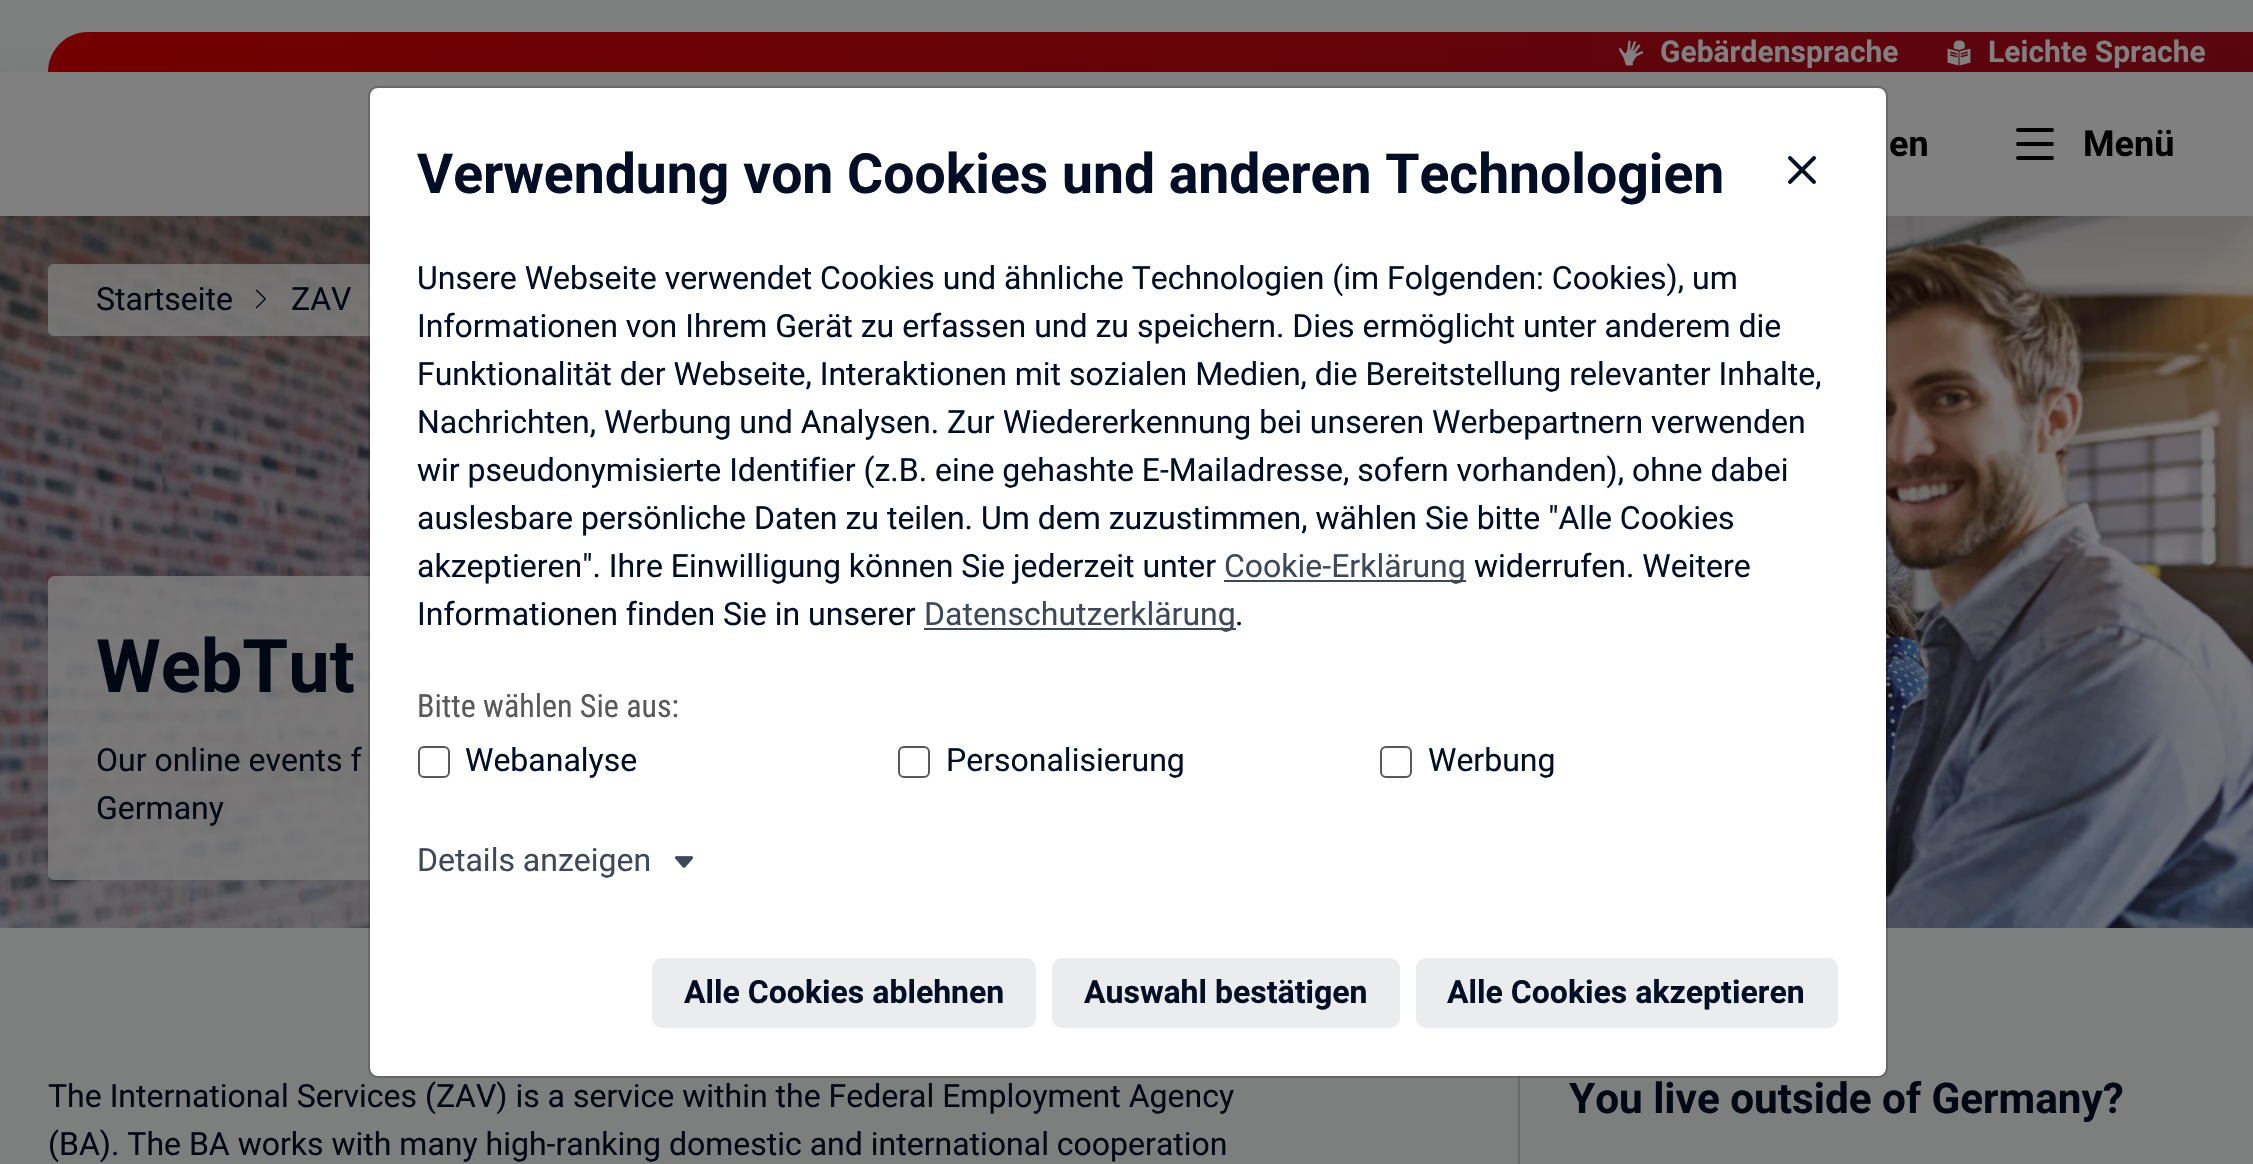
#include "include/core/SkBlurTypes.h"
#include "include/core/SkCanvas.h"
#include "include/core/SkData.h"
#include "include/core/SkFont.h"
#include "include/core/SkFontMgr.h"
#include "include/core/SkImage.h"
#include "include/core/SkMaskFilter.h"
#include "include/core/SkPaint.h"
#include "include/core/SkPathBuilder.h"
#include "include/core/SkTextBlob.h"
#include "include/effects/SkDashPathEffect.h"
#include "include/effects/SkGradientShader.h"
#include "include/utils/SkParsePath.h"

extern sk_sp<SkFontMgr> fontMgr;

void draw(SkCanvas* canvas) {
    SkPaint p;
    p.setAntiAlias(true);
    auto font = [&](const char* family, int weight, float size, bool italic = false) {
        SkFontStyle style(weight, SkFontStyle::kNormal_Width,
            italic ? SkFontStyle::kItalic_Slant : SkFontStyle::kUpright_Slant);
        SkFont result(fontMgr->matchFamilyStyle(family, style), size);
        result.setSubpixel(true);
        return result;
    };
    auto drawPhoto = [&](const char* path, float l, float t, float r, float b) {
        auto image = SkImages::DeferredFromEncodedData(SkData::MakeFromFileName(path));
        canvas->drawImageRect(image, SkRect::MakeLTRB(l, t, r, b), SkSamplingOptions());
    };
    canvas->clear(0xFF7D7E7E);
    {
        const SkColor colors[] = {0xFF740000, 0xFF5A0510};
        const float stops[] = {0, 1};
        const SkPoint ends[] = {{48, 52}, {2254, 52}};
        p.setShader(SkGradientShader::MakeLinear(ends, colors, stops, 2, SkTileMode::kClamp));
        p.setAlpha(255);
    }
    canvas->drawPath(SkPathBuilder().moveTo(88, 32).lineTo(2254, 32).lineTo(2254, 72).lineTo(48, 72).cubicTo(48, 50, 66, 32, 88, 32).close().detach(), p);
    drawPhoto("media/5.png", 0, 216, 2253, 928);
    p.setShader(nullptr);
    p.setColor(0xCC808080);
    canvas->drawRoundRect(SkRect::MakeLTRB(48, 264, 552, 336), 6, 6, p);
    drawPhoto("media/6.png", 255, 289, 266, 309);
    p.setColor(0x14000000);
    p.setMaskFilter(SkMaskFilter::MakeBlur(kNormal_SkBlurStyle, 24));
    canvas->drawRect(SkRect::MakeLTRB(-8, 88, 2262, 248), p);
    p.setMaskFilter(nullptr);
    drawPhoto("media/1.png", 1618, 40, 1644, 66);
    auto font1 = font("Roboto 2", 700, 30);
    p.setColor(0xFF808080);
    canvas->drawString("Gebärdensprache", 1660, 62, font1, p);
    drawPhoto("media/2.png", 1947, 40, 1971, 66);
    canvas->drawString("Leichte Sprache", 1988, 62, font1, p);
    canvas->drawRect(SkRect::MakeLTRB(0, 72, 2253, 216), p);
    auto font2 = font("Roboto 2", 700, 36);
    p.setColor(0xFF000000);
    canvas->drawString("en", 1889, 156, font2, p);
    canvas->drawRoundRect(SkRect::MakeLTRB(2016, 142, 2054, 146), 2, 2, p);
    canvas->drawRoundRect(SkRect::MakeLTRB(2016, 128, 2054, 132), 2, 2, p);
    canvas->drawRoundRect(SkRect::MakeLTRB(2016, 156, 2054, 160), 2, 2, p);
    canvas->drawString("Menü", 2083, 156, font2, p);
    p.setColor(0xCC808080);
    canvas->drawRoundRect(SkRect::MakeLTRB(48, 576, 1148, 880), 6, 6, p);
    p.setColor(0xFF696B6D);
    canvas->drawRect(SkRect::MakeLTRB(1518, 1072, 1520, 1164), p);
    p.setColor(0xFFFFFFFF);
    canvas->drawRoundRect(SkRect::MakeLTRB(370, 88, 1886, 1076), 8, 8, p);
    p.setStyle(SkPaint::kStroke_Style);
    p.setStrokeWidth(2);
    p.setColor(0x2E000000);
    canvas->drawRoundRect(SkRect::MakeLTRB(369, 87, 1887, 1077), 9, 9, p);
    auto font3 = font("Roboto", 700, 55.3f);
    p.setStyle(SkPaint::kFill_Style);
    p.setColor(0xFF020E25);
    canvas->drawString("Verwendung von Cookies und anderen Technologien", 417, 193, font3, p);
    drawPhoto("media/3.png", 1788, 156, 1816, 184);
    auto font4 = font("Roboto", 400, 32);
    {
        const struct { const char* s; float x, y; } items[] = {
            {"Unsere Webseite verwendet Cookies und ähnliche Technologien (im Folgenden: Cookies), um", 417, 289},
            {"Informationen von Ihrem Gerät zu erfassen und zu speichern. Dies ermöglicht unter anderem die", 417, 337},
            {"Funktionalität der Webseite, Interaktionen mit sozialen Medien, die Bereitstellung relevanter Inhalte,", 417, 385},
            {"Nachrichten, Werbung und Analysen. Zur Wiedererkennung bei unseren Werbepartnern verwenden", 417, 433},
            {"wir pseudonymisierte Identifier (z.B. eine gehashte E-Mailadresse, sofern vorhanden), ohne dabei", 417, 481},
            {"auslesbare persönliche Daten zu teilen. Um dem zuzustimmen, wählen Sie bitte \"Alle Cookies", 417, 529},
            {"akzeptieren\". Ihre Einwilligung können Sie jederzeit unter", 417, 577},
        };
        for (auto [s, x, y] : items) {
            canvas->drawString(s, x, y, font4, p);
        }
    }
    p.setColor(0xFF3F4859);
    canvas->drawRect(SkRect::MakeLTRB(1224, 580, 1466, 582), p);
    canvas->drawString("Cookie-Erklärung", 1224, 577, font4, p);
    p.setColor(0xFF020E25);
    canvas->drawString("widerrufen. Weitere", 1474, 577, font4, p);
    canvas->drawString("Informationen finden Sie in unserer", 417, 625, font4, p);
    p.setColor(0xFF3F4859);
    canvas->drawRect(SkRect::MakeLTRB(924, 628, 1236, 630), p);
    canvas->drawString("Datenschutzerklärung", 924, 625, font4, p);
    p.setColor(0xFF020E25);
    canvas->drawString(".", 1235, 625, font4, p);
    auto font5 = font("Roboto Condensed", 400, 32);
    p.setColor(0xFF595959);
    canvas->drawString("Bitte wählen Sie aus:", 417, 717, font5, p);
    p.setStyle(SkPaint::kStroke_Style);
    canvas->drawRoundRect(SkRect::MakeLTRB(419, 747, 449, 777), 5, 5, p);
    p.setStyle(SkPaint::kFill_Style);
    p.setColor(0xFF020E25);
    canvas->drawString("Webanalyse", 465, 771, font4, p);
    p.setStyle(SkPaint::kStroke_Style);
    p.setColor(0xFF595959);
    canvas->drawRoundRect(SkRect::MakeLTRB(899, 747, 929, 777), 5, 5, p);
    p.setStyle(SkPaint::kFill_Style);
    p.setColor(0xFF020E25);
    canvas->drawString("Personalisierung", 946, 771, font4, p);
    p.setStyle(SkPaint::kStroke_Style);
    p.setColor(0xFF595959);
    canvas->drawRoundRect(SkRect::MakeLTRB(1381, 747, 1411, 777), 5, 5, p);
    p.setStyle(SkPaint::kFill_Style);
    p.setColor(0xFF020E25);
    canvas->drawString("Werbung", 1428, 771, font4, p);
    p.setColor(0xFF3F4859);
    canvas->drawString("Details anzeigen", 417, 871, font4, p);
    drawPhoto("media/4.png", 674, 856, 693, 868);
    p.setColor(0xFFEBECEE);
    canvas->drawRoundRect(SkRect::MakeLTRB(652, 958, 1036, 1028), 10, 10, p);
    auto font6 = font("Roboto 2", 700, 32);
    p.setColor(0xFF020E25);
    canvas->drawString("Alle Cookies ablehnen", 684, 1003, font6, p);
    p.setColor(0xFFEBECEE);
    canvas->drawRoundRect(SkRect::MakeLTRB(1052, 958, 1400, 1028), 10, 10, p);
    p.setColor(0xFF020E25);
    canvas->drawString("Auswahl bestätigen", 1084, 1003, font6, p);
    p.setColor(0xFFEBECEE);
    canvas->drawRoundRect(SkRect::MakeLTRB(1416, 958, 1838, 1028), 10, 10, p);
    p.setColor(0xFF020E25);
    canvas->drawString("Alle Cookies akzeptieren", 1447, 1003, font6, p);
    p.setColor(0xFF010713);
    canvas->drawString("Startseite", 96, 310, font4, p);
    canvas->drawString("ZAV", 291, 310, font4, p);
    auto font7 = font("Roboto", 700, 74);
    canvas->drawString("WebTut", 96, 692, font7, p);
    {
        const struct { const char* s; float x, y; } items[] = {
            {"Our online events f", 96, 771},
            {"Germany", 96, 819},
            {"The International Services (ZAV) is a service within the Federal Employment Agency", 48, 1107},
            {"(BA). The BA works with many high-ranking domestic and international cooperation", 48, 1155},
        };
        for (auto [s, x, y] : items) {
            canvas->drawString(s, x, y, font4, p);
        }
    }
    auto font8 = font("Roboto", 700, 42.25f);
    canvas->drawString("You live outside of Germany?", 1569, 1113, font8, p);
}
